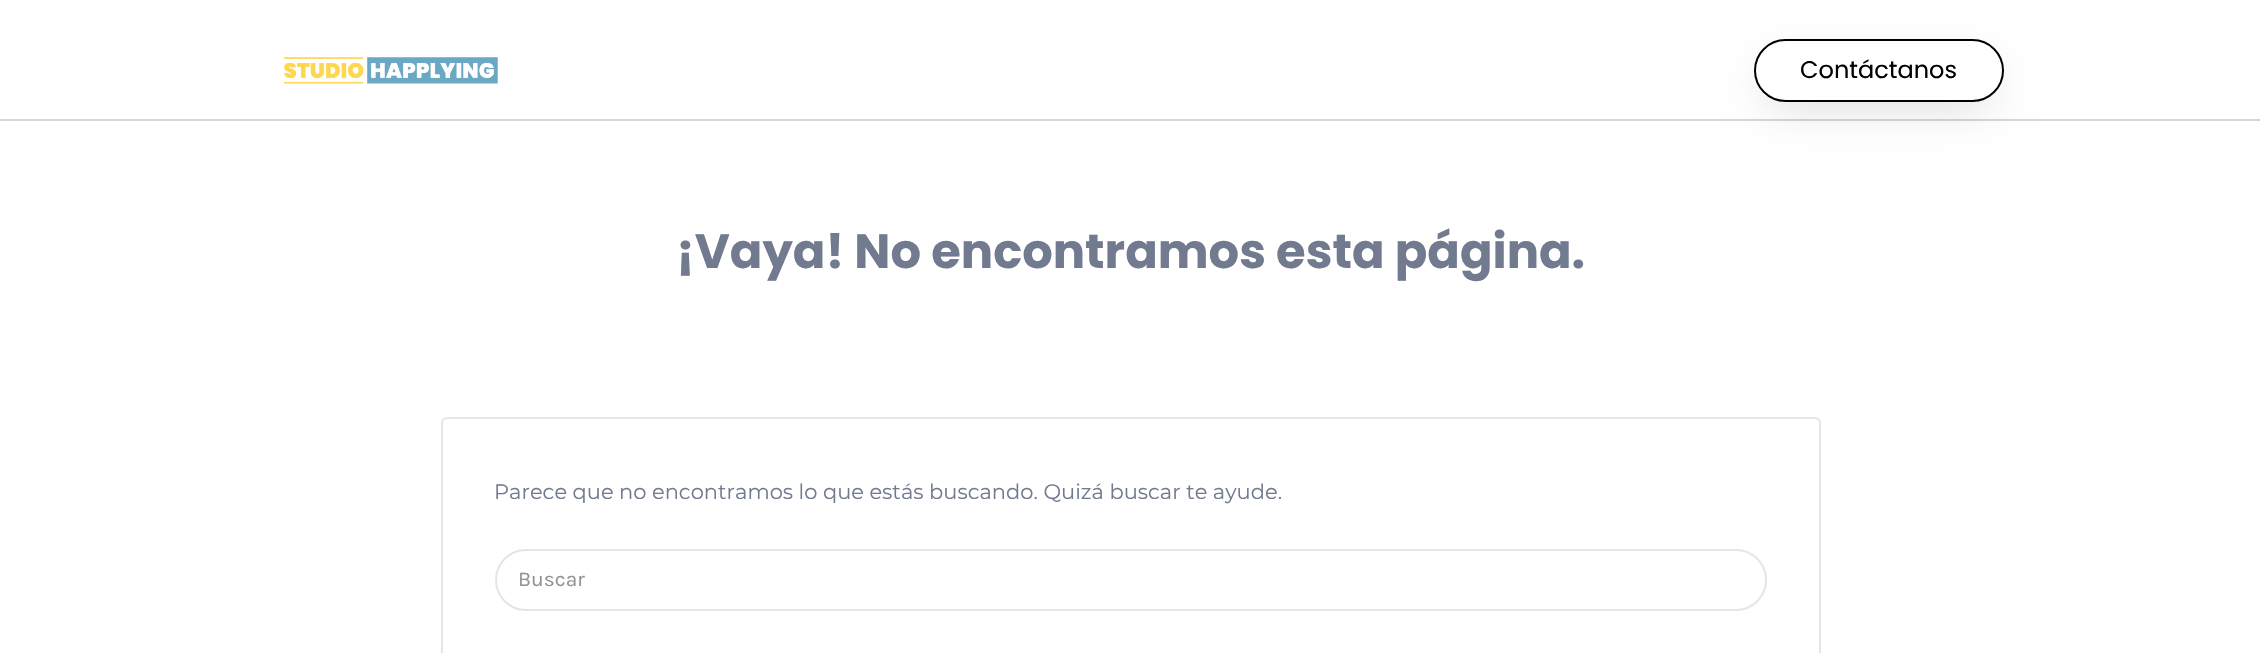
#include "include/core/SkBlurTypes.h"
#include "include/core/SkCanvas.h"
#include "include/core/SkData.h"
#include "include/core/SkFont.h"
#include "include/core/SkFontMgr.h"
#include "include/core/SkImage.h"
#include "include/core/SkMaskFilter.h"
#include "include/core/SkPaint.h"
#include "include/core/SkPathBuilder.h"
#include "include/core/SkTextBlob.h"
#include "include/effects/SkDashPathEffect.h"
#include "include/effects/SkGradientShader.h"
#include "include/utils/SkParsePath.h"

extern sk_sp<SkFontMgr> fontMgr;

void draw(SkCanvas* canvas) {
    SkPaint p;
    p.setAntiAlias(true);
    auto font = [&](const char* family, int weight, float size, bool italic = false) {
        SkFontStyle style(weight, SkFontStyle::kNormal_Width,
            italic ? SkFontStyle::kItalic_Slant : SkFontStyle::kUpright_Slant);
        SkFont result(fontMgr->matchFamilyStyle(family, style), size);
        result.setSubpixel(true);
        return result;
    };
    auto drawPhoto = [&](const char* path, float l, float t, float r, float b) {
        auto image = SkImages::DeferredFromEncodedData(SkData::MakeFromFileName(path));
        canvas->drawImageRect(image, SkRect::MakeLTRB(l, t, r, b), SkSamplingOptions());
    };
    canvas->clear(0xFFFFFFFF);
    p.setColor(0xFFD6D6D6);
    canvas->drawRect(SkRect::MakeLTRB(0, 119, 2260, 121), p);
    drawPhoto("media/1.png", 284, 57, 498, 84);
    canvas->save();
    canvas->clipPath(SkPathBuilder(SkPathFillType::kEvenOdd).moveTo(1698, 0).lineTo(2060, 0).lineTo(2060, 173).lineTo(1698, 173).close().moveTo(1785.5f, 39).lineTo(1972.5f, 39).cubicTo(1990, 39, 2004, 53, 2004, 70.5f).cubicTo(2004, 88, 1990, 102, 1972.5f, 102).lineTo(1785.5f, 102).cubicTo(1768, 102, 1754, 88, 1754, 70.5f).cubicTo(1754, 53, 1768, 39, 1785.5f, 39).close().detach(), true);
    p.setColor(0x29000000);
    p.setMaskFilter(SkMaskFilter::MakeBlur(kNormal_SkBlurStyle, 22.5f));
    canvas->drawRoundRect(SkRect::MakeLTRB(1767, 68, 1991, 104), 18, 18, p);
    p.setMaskFilter(nullptr);
    canvas->restore();
    p.setStyle(SkPaint::kStroke_Style);
    p.setStrokeWidth(2);
    p.setColor(0xFF000000);
    canvas->drawRoundRect(SkRect::MakeLTRB(1755, 40, 2003, 101), 30.5f, 30.5f, p);
    auto font1 = font("Poppins", 400, 24);
    p.setStyle(SkPaint::kFill_Style);
    canvas->drawString("Contáctanos", 1800, 78, font1, p);
    auto font2 = font("Poppins", 700, 48);
    p.setColor(0xFF717A8F);
    canvas->drawString("¡Vaya! No encontramos esta página.", 676, 268, font2, p);
    p.setStyle(SkPaint::kStroke_Style);
    p.setColor(0xFFE5E5E5);
    canvas->drawRoundRect(SkRect::MakeLTRB(442, 418, 1820, 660), 5, 5, p);
    auto font3 = font("Montserrat", 400, 21);
    p.setStyle(SkPaint::kFill_Style);
    p.setColor(0xFF717A8F);
    canvas->drawString("Parece que no encontramos lo que estás buscando. Quizá buscar te ayude.", 494, 499, font3, p);
    p.setStyle(SkPaint::kStroke_Style);
    p.setColor(0xFFE5E5E5);
    canvas->drawRoundRect(SkRect::MakeLTRB(496, 550, 1766, 610), 30, 30, p);
    auto font4 = font("Karla", 400, 21);
    p.setStyle(SkPaint::kFill_Style);
    p.setColor(0xFF939393);
    canvas->drawString("Buscar", 518, 586, font4, p);
}
